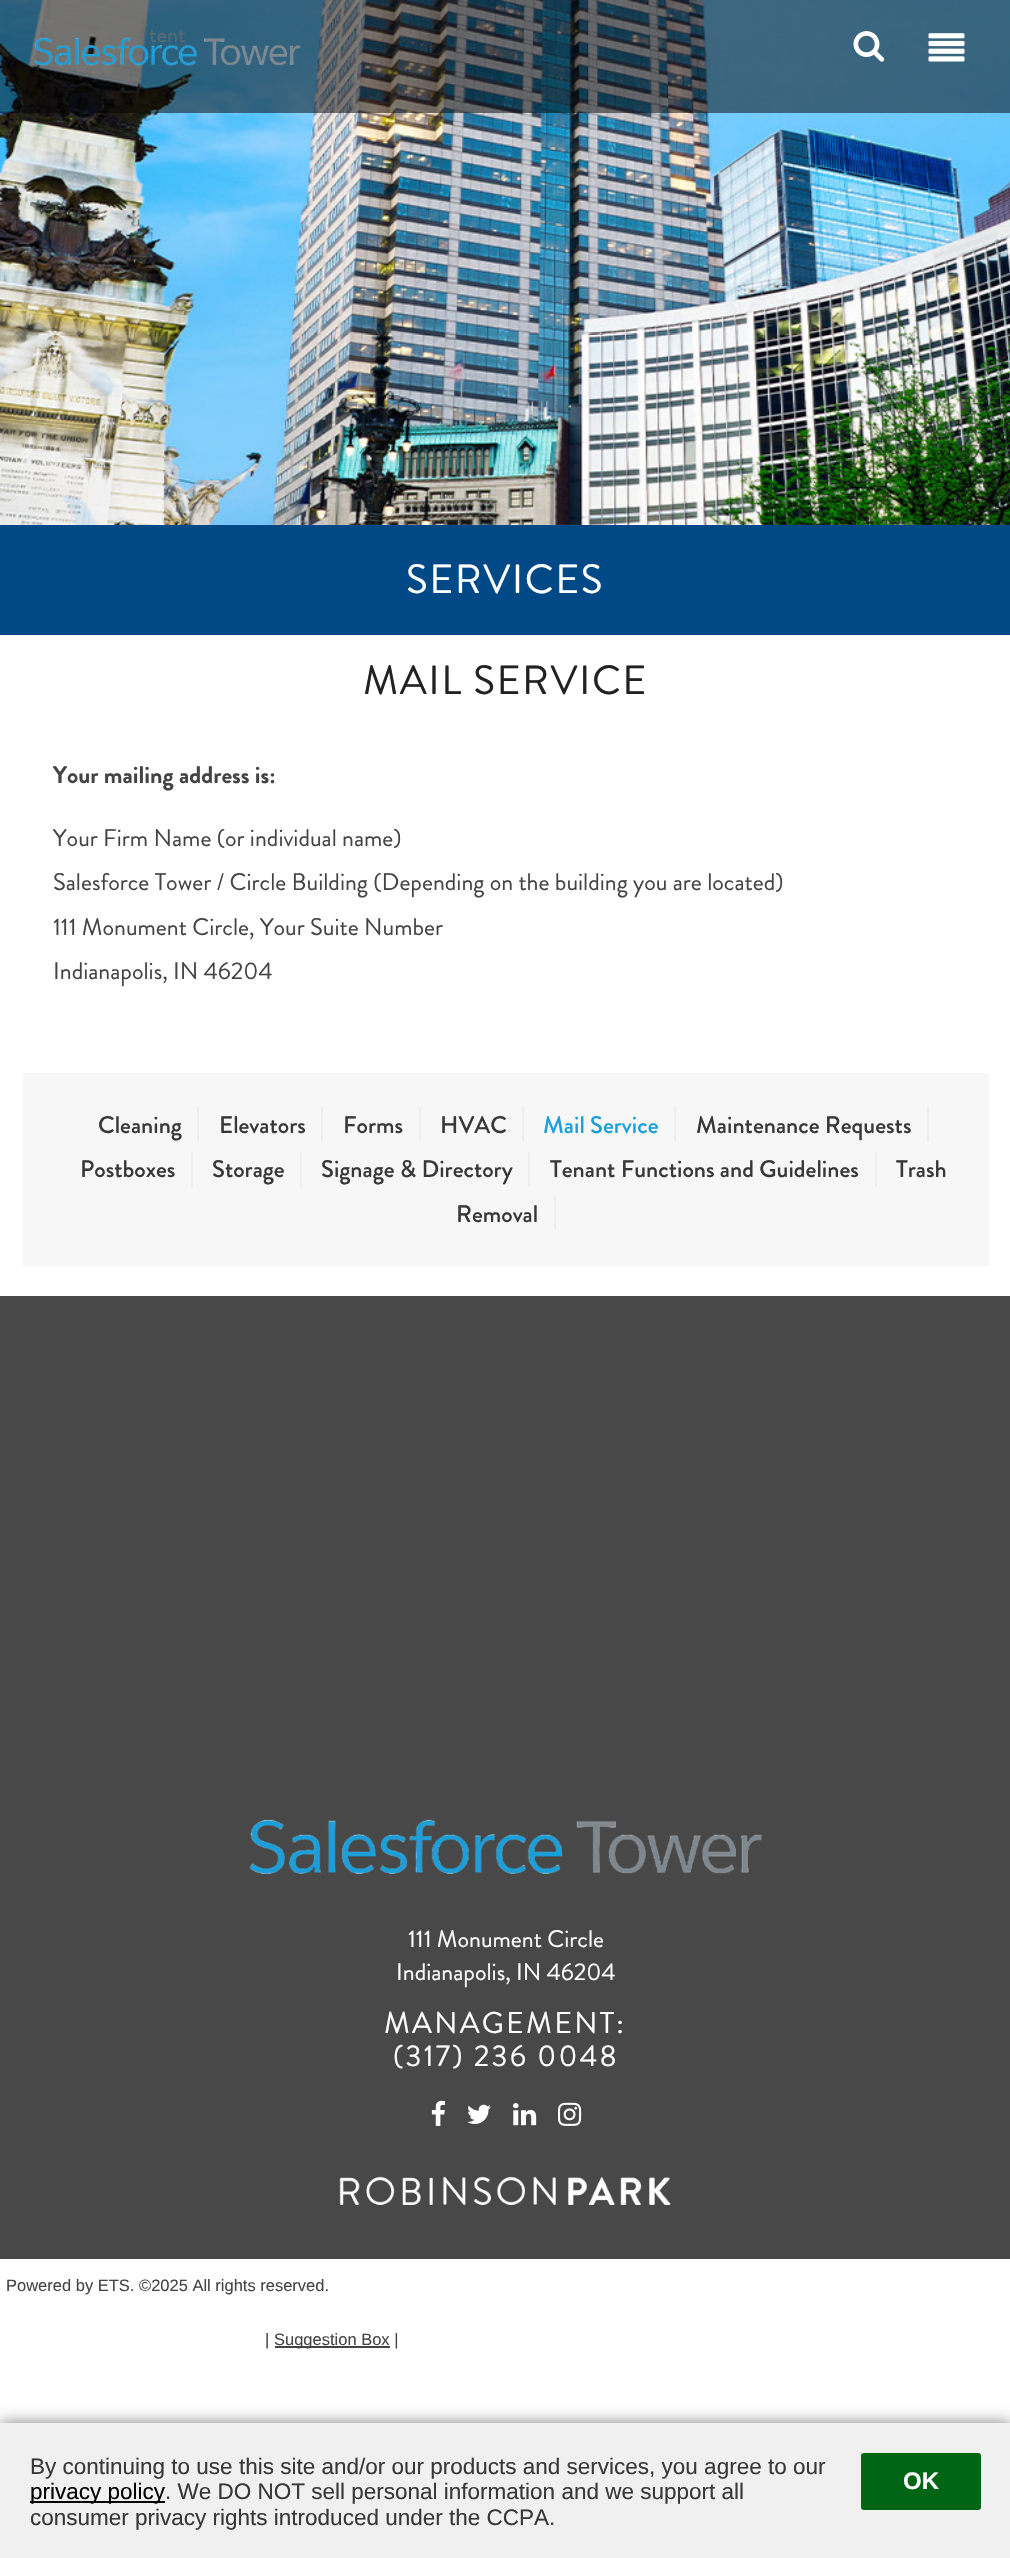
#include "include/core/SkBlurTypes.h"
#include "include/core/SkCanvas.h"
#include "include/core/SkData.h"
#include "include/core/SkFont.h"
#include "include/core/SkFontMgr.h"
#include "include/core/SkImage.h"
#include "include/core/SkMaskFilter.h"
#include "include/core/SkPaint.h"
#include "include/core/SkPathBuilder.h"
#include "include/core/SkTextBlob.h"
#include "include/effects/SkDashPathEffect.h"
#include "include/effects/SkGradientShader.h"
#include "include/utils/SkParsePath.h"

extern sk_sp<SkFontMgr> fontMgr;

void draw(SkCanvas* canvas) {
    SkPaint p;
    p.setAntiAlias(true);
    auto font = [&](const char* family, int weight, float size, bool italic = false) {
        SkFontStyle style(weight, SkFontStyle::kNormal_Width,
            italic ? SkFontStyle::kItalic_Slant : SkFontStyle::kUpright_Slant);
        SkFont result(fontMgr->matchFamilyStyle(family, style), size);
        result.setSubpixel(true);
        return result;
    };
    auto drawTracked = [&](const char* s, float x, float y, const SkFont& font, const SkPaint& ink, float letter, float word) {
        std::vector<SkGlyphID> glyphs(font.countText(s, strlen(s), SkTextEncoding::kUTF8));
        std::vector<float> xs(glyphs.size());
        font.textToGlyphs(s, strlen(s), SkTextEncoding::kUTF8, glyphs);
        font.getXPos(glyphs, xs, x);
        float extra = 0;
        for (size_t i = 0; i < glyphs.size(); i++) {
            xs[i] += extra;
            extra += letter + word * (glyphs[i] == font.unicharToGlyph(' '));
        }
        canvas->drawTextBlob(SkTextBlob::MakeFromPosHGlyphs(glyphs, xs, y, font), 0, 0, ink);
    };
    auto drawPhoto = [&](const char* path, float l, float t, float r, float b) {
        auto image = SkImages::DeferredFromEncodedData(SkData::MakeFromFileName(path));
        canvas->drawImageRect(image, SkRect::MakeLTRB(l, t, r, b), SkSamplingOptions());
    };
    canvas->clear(0xFFFFFFFF);
    drawPhoto("media/4.png", 0, 0, 1010, 525);
    p.setColor(0x80000000);
    canvas->drawRect(SkRect::MakeLTRB(0, 0, 1010, 113), p);
    auto font1 = font("Brandon Grotesque", 400, 22.5f);
    p.setColor(0xFF5A6B73);
    canvas->drawString("tent", 149, 42, font1, p);
    drawPhoto("media/1.png", 853, 31, 885, 62);
    drawPhoto("media/2.png", 928, 33, 965, 62);
    drawPhoto("media/3.png", 34, 37, 301, 66);
    p.setColor(0xFF004987);
    canvas->drawRect(SkRect::MakeLTRB(0, 525, 1010, 635), p);
    auto font2 = font("Brandon Grotesque", 400, 40.75f);
    p.setColor(0xFFFFFFFF);
    drawTracked("SERVICES", 406, 593, font2, p, 1.5f, 0);
    p.setColor(0xFF222222);
    drawTracked("MAIL SERVICE", 363, 694, font2, p, 1.5f, 0);
    auto font3 = font("Brandon Grotesque", 700, 24);
    p.setColor(0xFF444444);
    canvas->drawString("Your mailing address is:", 53, 783, font3, p);
    auto font4 = font("Brandon Grotesque", 400, 24);
    {
        const struct { const char* s; float x, y; } items[] = {
            {"Your Firm Name (or individual name)", 53, 846},
            {"Salesforce Tower / Circle Building (Depending on the building you are located)", 53, 890},
            {"111 Monument Circle, Your Suite Number", 53, 935},
            {"Indianapolis, IN 46204", 53, 979},
        };
        for (auto [s, x, y] : items) {
            canvas->drawString(s, x, y, font4, p);
        }
    }
    p.setColor(0xFFF7F7F7);
    canvas->drawRect(SkRect::MakeLTRB(23, 1073, 989, 1266), p);
    auto font5 = font("Brandon Grotesque", 500, 24);
    p.setColor(0xFF383838);
    canvas->drawString("Cleaning", 98, 1133, font5, p);
    p.setColor(0xFFEEEEEE);
    canvas->drawRect(SkRect::MakeLTRB(197, 1107, 199, 1142), p);
    p.setColor(0xFF383838);
    canvas->drawString("Elevators", 219, 1133, font5, p);
    p.setColor(0xFFEEEEEE);
    canvas->drawRect(SkRect::MakeLTRB(321, 1107, 323, 1142), p);
    p.setColor(0xFF383838);
    canvas->drawString("Forms", 343, 1133, font5, p);
    p.setColor(0xFFEEEEEE);
    canvas->drawRect(SkRect::MakeLTRB(419, 1107, 421, 1142), p);
    p.setColor(0xFF383838);
    canvas->drawString("HVAC", 440, 1133, font5, p);
    p.setColor(0xFFEEEEEE);
    canvas->drawRect(SkRect::MakeLTRB(522, 1107, 524, 1142), p);
    p.setColor(0xFF19A0D8);
    canvas->drawString("Mail Service", 543, 1133, font5, p);
    p.setColor(0xFFEEEEEE);
    canvas->drawRect(SkRect::MakeLTRB(674, 1107, 676, 1142), p);
    p.setColor(0xFF383838);
    canvas->drawString("Maintenance Requests", 696, 1133, font5, p);
    p.setColor(0xFFEEEEEE);
    canvas->drawRect(SkRect::MakeLTRB(927, 1107, 929, 1142), p);
    p.setColor(0xFF383838);
    canvas->drawString("Postboxes", 80, 1177, font5, p);
    p.setColor(0xFFEEEEEE);
    canvas->drawRect(SkRect::MakeLTRB(191, 1152, 193, 1187), p);
    p.setColor(0xFF383838);
    canvas->drawString("Storage", 212, 1177, font5, p);
    p.setColor(0xFFEEEEEE);
    canvas->drawRect(SkRect::MakeLTRB(300, 1152, 302, 1187), p);
    p.setColor(0xFF383838);
    canvas->drawString("Signage & Directory", 321, 1177, font5, p);
    p.setColor(0xFFEEEEEE);
    canvas->drawRect(SkRect::MakeLTRB(528, 1152, 530, 1187), p);
    p.setColor(0xFF383838);
    canvas->drawString("Tenant Functions and Guidelines", 550, 1177, font5, p);
    p.setColor(0xFFEEEEEE);
    canvas->drawRect(SkRect::MakeLTRB(875, 1152, 877, 1187), p);
    p.setColor(0xFF383838);
    canvas->drawString("Trash", 896, 1177, font5, p);
    canvas->drawString("Removal", 456, 1222, font5, p);
    p.setColor(0xFFEEEEEE);
    canvas->drawRect(SkRect::MakeLTRB(554, 1196, 556, 1230), p);
    p.setColor(0xFF484848);
    canvas->drawRect(SkRect::MakeLTRB(0, 1296, 1010, 2259), p);
    drawPhoto("media/5.png", 249, 1819, 762, 1874);
    p.setColor(0xFFFFFFFF);
    canvas->drawString("111 Monument Circle", 408, 1947, font4, p);
    canvas->drawString("Indianapolis, IN 46204", 396, 1980, font4, p);
    auto font6 = font("Brandon Grotesque", 400, 30);
    drawTracked("MANAGEMENT:", 384, 2033, font6, p, 2.25f, 0);
    drawTracked("(317) 236 0048", 393, 2066, font6, p, 2.25f, 0);
    drawPhoto("media/6.png", 431, 2100, 445, 2126);
    drawPhoto("media/7.png", 467, 2104, 491, 2124);
    drawPhoto("media/8.png", 513, 2103, 537, 2126);
    drawPhoto("media/9.png", 558, 2102, 582, 2126);
    drawPhoto("media/10.png", 339, 2176, 671, 2205);
    auto font7 = font("Liberation Sans", 400, 16.5f);
    p.setColor(0xFF444444);
    canvas->drawString("Powered by ETS. ©2025 All rights reserved.", 6, 2291, font7, p);
    canvas->drawString("|", 265, 2345, font7, p);
    canvas->drawRect(SkRect::MakeLTRB(275, 2346, 390, 2348), p);
    canvas->drawString("Suggestion Box |", 274, 2345, font7, p);
    p.setColor(0x80000000);
    p.setMaskFilter(SkMaskFilter::MakeBlur(kNormal_SkBlurStyle, 7.5f));
    canvas->drawRect(SkRect::MakeLTRB(0, 2423, 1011, 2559), p);
    p.setMaskFilter(nullptr);
    p.setColor(0xFFF0F0F0);
    canvas->drawRect(SkRect::MakeLTRB(0, 2423, 1010, 2558), p);
    auto font8 = font("Liberation Sans", 400, 22.5f);
    p.setColor(0xFF383838);
    canvas->drawString("By continuing to use this site and/or our products and services, you agree to our", 30, 2474, font8, p);
    p.setColor(0xFF000000);
    canvas->drawRect(SkRect::MakeLTRB(30, 2501, 165, 2503), p);
    canvas->drawString("privacy policy", 30, 2499, font8, p);
    p.setColor(0xFF383838);
    canvas->drawString(". We DO NOT sell personal information and we support all", 165, 2499, font8, p);
    canvas->drawString("consumer privacy rights introduced under the CCPA.", 30, 2525, font8, p);
    p.setColor(0xFF006616);
    canvas->drawRoundRect(SkRect::MakeLTRB(861, 2453, 981, 2510), 3, 3, p);
    auto font9 = font("Liberation Sans", 700, 24);
    p.setColor(0xFFFFFFFF);
    canvas->drawString("OK", 903, 2489, font9, p);
}
